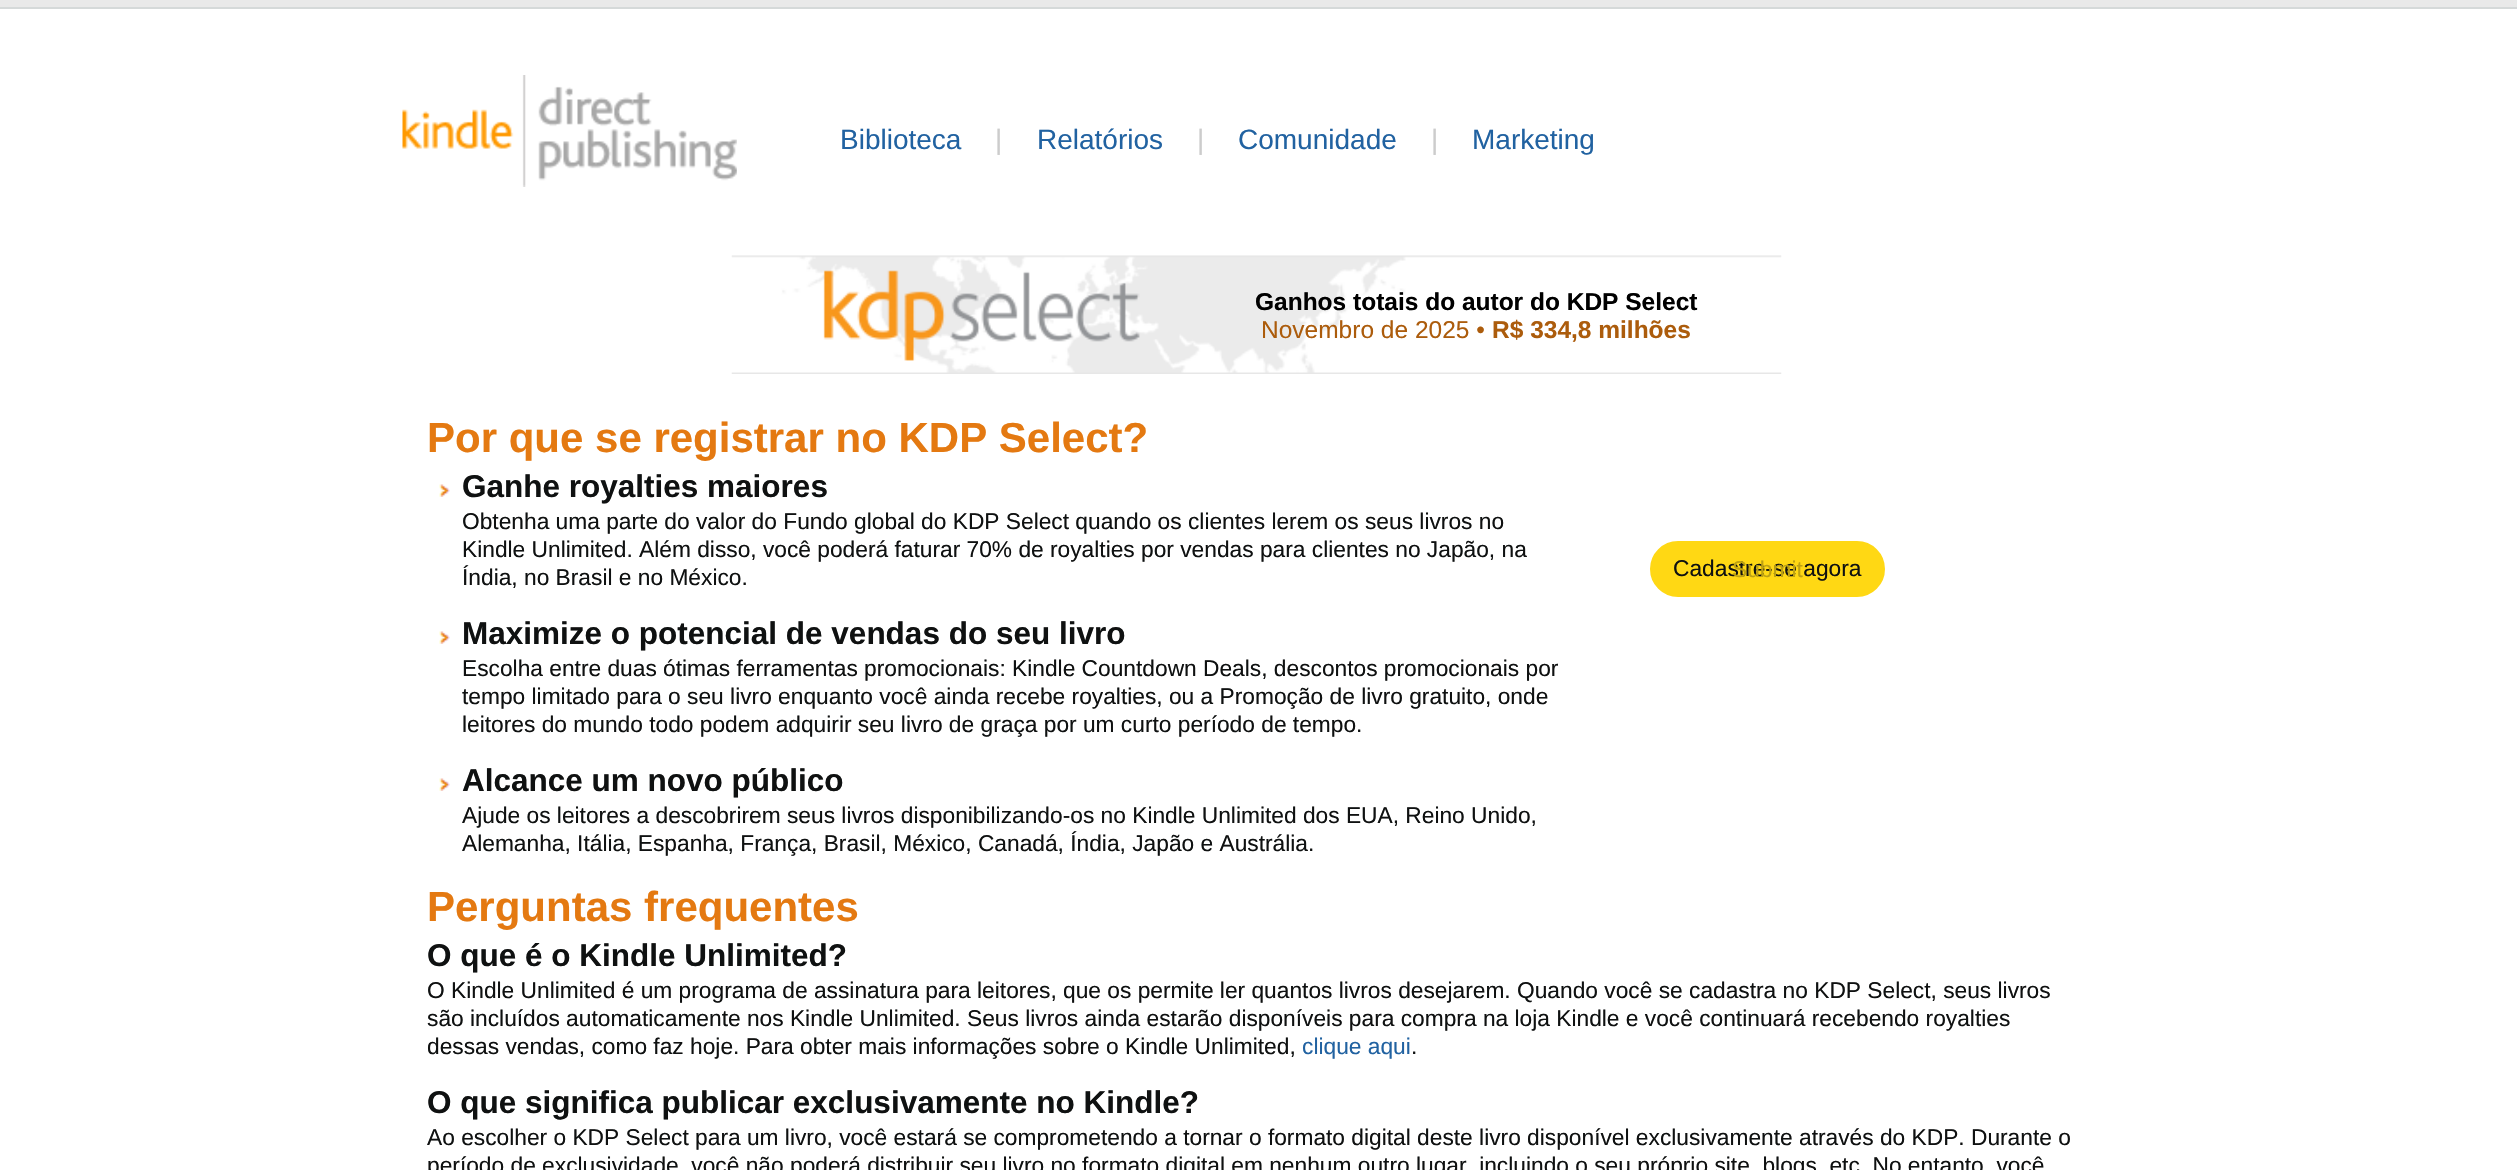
#include "include/core/SkBlurTypes.h"
#include "include/core/SkCanvas.h"
#include "include/core/SkData.h"
#include "include/core/SkFont.h"
#include "include/core/SkFontMgr.h"
#include "include/core/SkImage.h"
#include "include/core/SkMaskFilter.h"
#include "include/core/SkPaint.h"
#include "include/core/SkPathBuilder.h"
#include "include/core/SkTextBlob.h"
#include "include/effects/SkDashPathEffect.h"
#include "include/effects/SkGradientShader.h"
#include "include/utils/SkParsePath.h"

extern sk_sp<SkFontMgr> fontMgr;

void draw(SkCanvas* canvas) {
    SkPaint p;
    p.setAntiAlias(true);
    auto font = [&](const char* family, int weight, float size, bool italic = false) {
        SkFontStyle style(weight, SkFontStyle::kNormal_Width,
            italic ? SkFontStyle::kItalic_Slant : SkFontStyle::kUpright_Slant);
        SkFont result(fontMgr->matchFamilyStyle(family, style), size);
        result.setSubpixel(true);
        return result;
    };
    auto drawPhoto = [&](const char* path, float l, float t, float r, float b) {
        auto image = SkImages::DeferredFromEncodedData(SkData::MakeFromFileName(path));
        canvas->drawImageRect(image, SkRect::MakeLTRB(l, t, r, b), SkSamplingOptions());
    };
    canvas->clear(0xFFFFFFFF);
    p.setColor(0xFFE9E9E9);
    canvas->drawRect(SkRect::MakeLTRB(0, 0, 2517, 7), p);
    p.setColor(0xFFD5D9D9);
    canvas->drawRect(SkRect::MakeLTRB(0, 7, 2517, 9), p);
    drawPhoto("media/1.png", 402, 75, 737, 187);
    auto font1 = font("Liberation Sans", 400, 28);
    p.setColor(0xFF2162A1);
    canvas->drawString("Biblioteca", 840, 149, font1, p);
    p.setColor(0xFFCCCCCC);
    canvas->drawString("|", 995, 149, font1, p);
    p.setColor(0xFF2162A1);
    canvas->drawString("Relatórios", 1037, 149, font1, p);
    p.setColor(0xFFCCCCCC);
    canvas->drawString("|", 1197, 149, font1, p);
    p.setColor(0xFF2162A1);
    canvas->drawString("Comunidade", 1238, 149, font1, p);
    p.setColor(0xFFCCCCCC);
    canvas->drawString("|", 1431, 149, font1, p);
    p.setColor(0xFF2162A1);
    canvas->drawString("Marketing", 1472, 149, font1, p);
    drawPhoto("media/2.png", 731, 255, 1782, 374);
    auto font2 = font("Liberation Sans", 700, 24.5f);
    p.setColor(0xFF000000);
    canvas->drawString("Ganhos totais do autor do KDP Select", 1255, 310, font2, p);
    auto font3 = font("Liberation Sans", 400, 24.5f);
    p.setColor(0xFFAC5C0C);
    canvas->drawString("Novembro de 2025 •", 1261, 338, font3, p);
    canvas->drawString("R$ 334,8 milhões", 1492, 338, font2, p);
    auto font4 = font("Liberation Sans", 700, 42);
    p.setColor(0xFFE47911);
    canvas->drawString("Por que se registrar no KDP Select?", 427, 452, font4, p);
    drawPhoto("media/3.png", 439, 484, 450, 497);
    auto font5 = font("Liberation Sans", 700, 31.5f);
    p.setColor(0xFF0F1111);
    canvas->drawString("Ganhe royalties maiores", 462, 497, font5, p);
    auto font6 = font("Liberation Sans", 400, 22.75f);
    {
        const struct { const char* s; float x, y; } items[] = {
            {"Obtenha uma parte do valor do Fundo global do KDP Select quando os clientes lerem os seus livros no", 462, 529},
            {"Kindle Unlimited. Além disso, você poderá faturar 70% de royalties por vendas para clientes no Japão, na", 462, 557},
            {"Índia, no Brasil e no México.", 462, 585},
        };
        for (auto [s, x, y] : items) {
            canvas->drawString(s, x, y, font6, p);
        }
    }
    drawPhoto("media/3.png", 439, 631, 450, 644);
    canvas->drawString("Maximize o potencial de vendas do seu livro", 462, 644, font5, p);
    {
        const struct { const char* s; float x, y; } items[] = {
            {"Escolha entre duas ótimas ferramentas promocionais: Kindle Countdown Deals, descontos promocionais por", 462, 676},
            {"tempo limitado para o seu livro enquanto você ainda recebe royalties, ou a Promoção de livro gratuito, onde", 462, 704},
            {"leitores do mundo todo podem adquirir seu livro de graça por um curto período de tempo.", 462, 732},
        };
        for (auto [s, x, y] : items) {
            canvas->drawString(s, x, y, font6, p);
        }
    }
    drawPhoto("media/3.png", 439, 778, 450, 791);
    canvas->drawString("Alcance um novo público", 462, 791, font5, p);
    canvas->drawString("Ajude os leitores a descobrirem seus livros disponibilizando-os no Kindle Unlimited dos EUA, Reino Unido,", 462, 823, font6, p);
    canvas->drawString("Alemanha, Itália, Espanha, França, Brasil, México, Canadá, Índia, Japão e Austrália.", 462, 851, font6, p);
    p.setColor(0xFFFFD814);
    canvas->drawRoundRect(SkRect::MakeLTRB(1651, 542, 1884, 596), 27, 27, p);
    p.setStyle(SkPaint::kStroke_Style);
    p.setStrokeWidth(2);
    canvas->drawRoundRect(SkRect::MakeLTRB(1651, 542, 1884, 596), 27, 27, p);
    p.setStyle(SkPaint::kFill_Style);
    p.setColor(0xFF0F1111);
    canvas->drawString("Cadastre-se agora", 1673, 576, font6, p);
    p.setColor(0xFFBDA113);
    canvas->drawString("Submit", 1732, 577, font6, p);
    p.setColor(0xFFE47911);
    canvas->drawString("Perguntas frequentes", 427, 921, font4, p);
    p.setColor(0xFF0F1111);
    canvas->drawString("O que é o Kindle Unlimited?", 427, 966, font5, p);
    {
        const struct { const char* s; float x, y; } items[] = {
            {"O Kindle Unlimited é um programa de assinatura para leitores, que os permite ler quantos livros desejarem. Quando você se cadastra no KDP Select, seus livros", 427, 998},
            {"são incluídos automaticamente nos Kindle Unlimited. Seus livros ainda estarão disponíveis para compra na loja Kindle e você continuará recebendo royalties", 427, 1026},
            {"dessas vendas, como faz hoje. Para obter mais informações sobre o Kindle Unlimited,", 427, 1054},
        };
        for (auto [s, x, y] : items) {
            canvas->drawString(s, x, y, font6, p);
        }
    }
    p.setColor(0xFF2162A1);
    canvas->drawString("clique aqui", 1302, 1054, font6, p);
    p.setColor(0xFF0F1111);
    canvas->drawString(".", 1411, 1054, font6, p);
    canvas->drawString("O que significa publicar exclusivamente no Kindle?", 427, 1113, font5, p);
    canvas->drawString("Ao escolher o KDP Select para um livro, você estará se comprometendo a tornar o formato digital deste livro disponível exclusivamente através do KDP. Durante o", 427, 1145, font6, p);
    canvas->drawString("período de exclusividade, você não poderá distribuir seu livro no formato digital em nenhum outro lugar, incluindo o seu próprio site, blogs, etc. No entanto, você", 427, 1173, font6, p);
}
